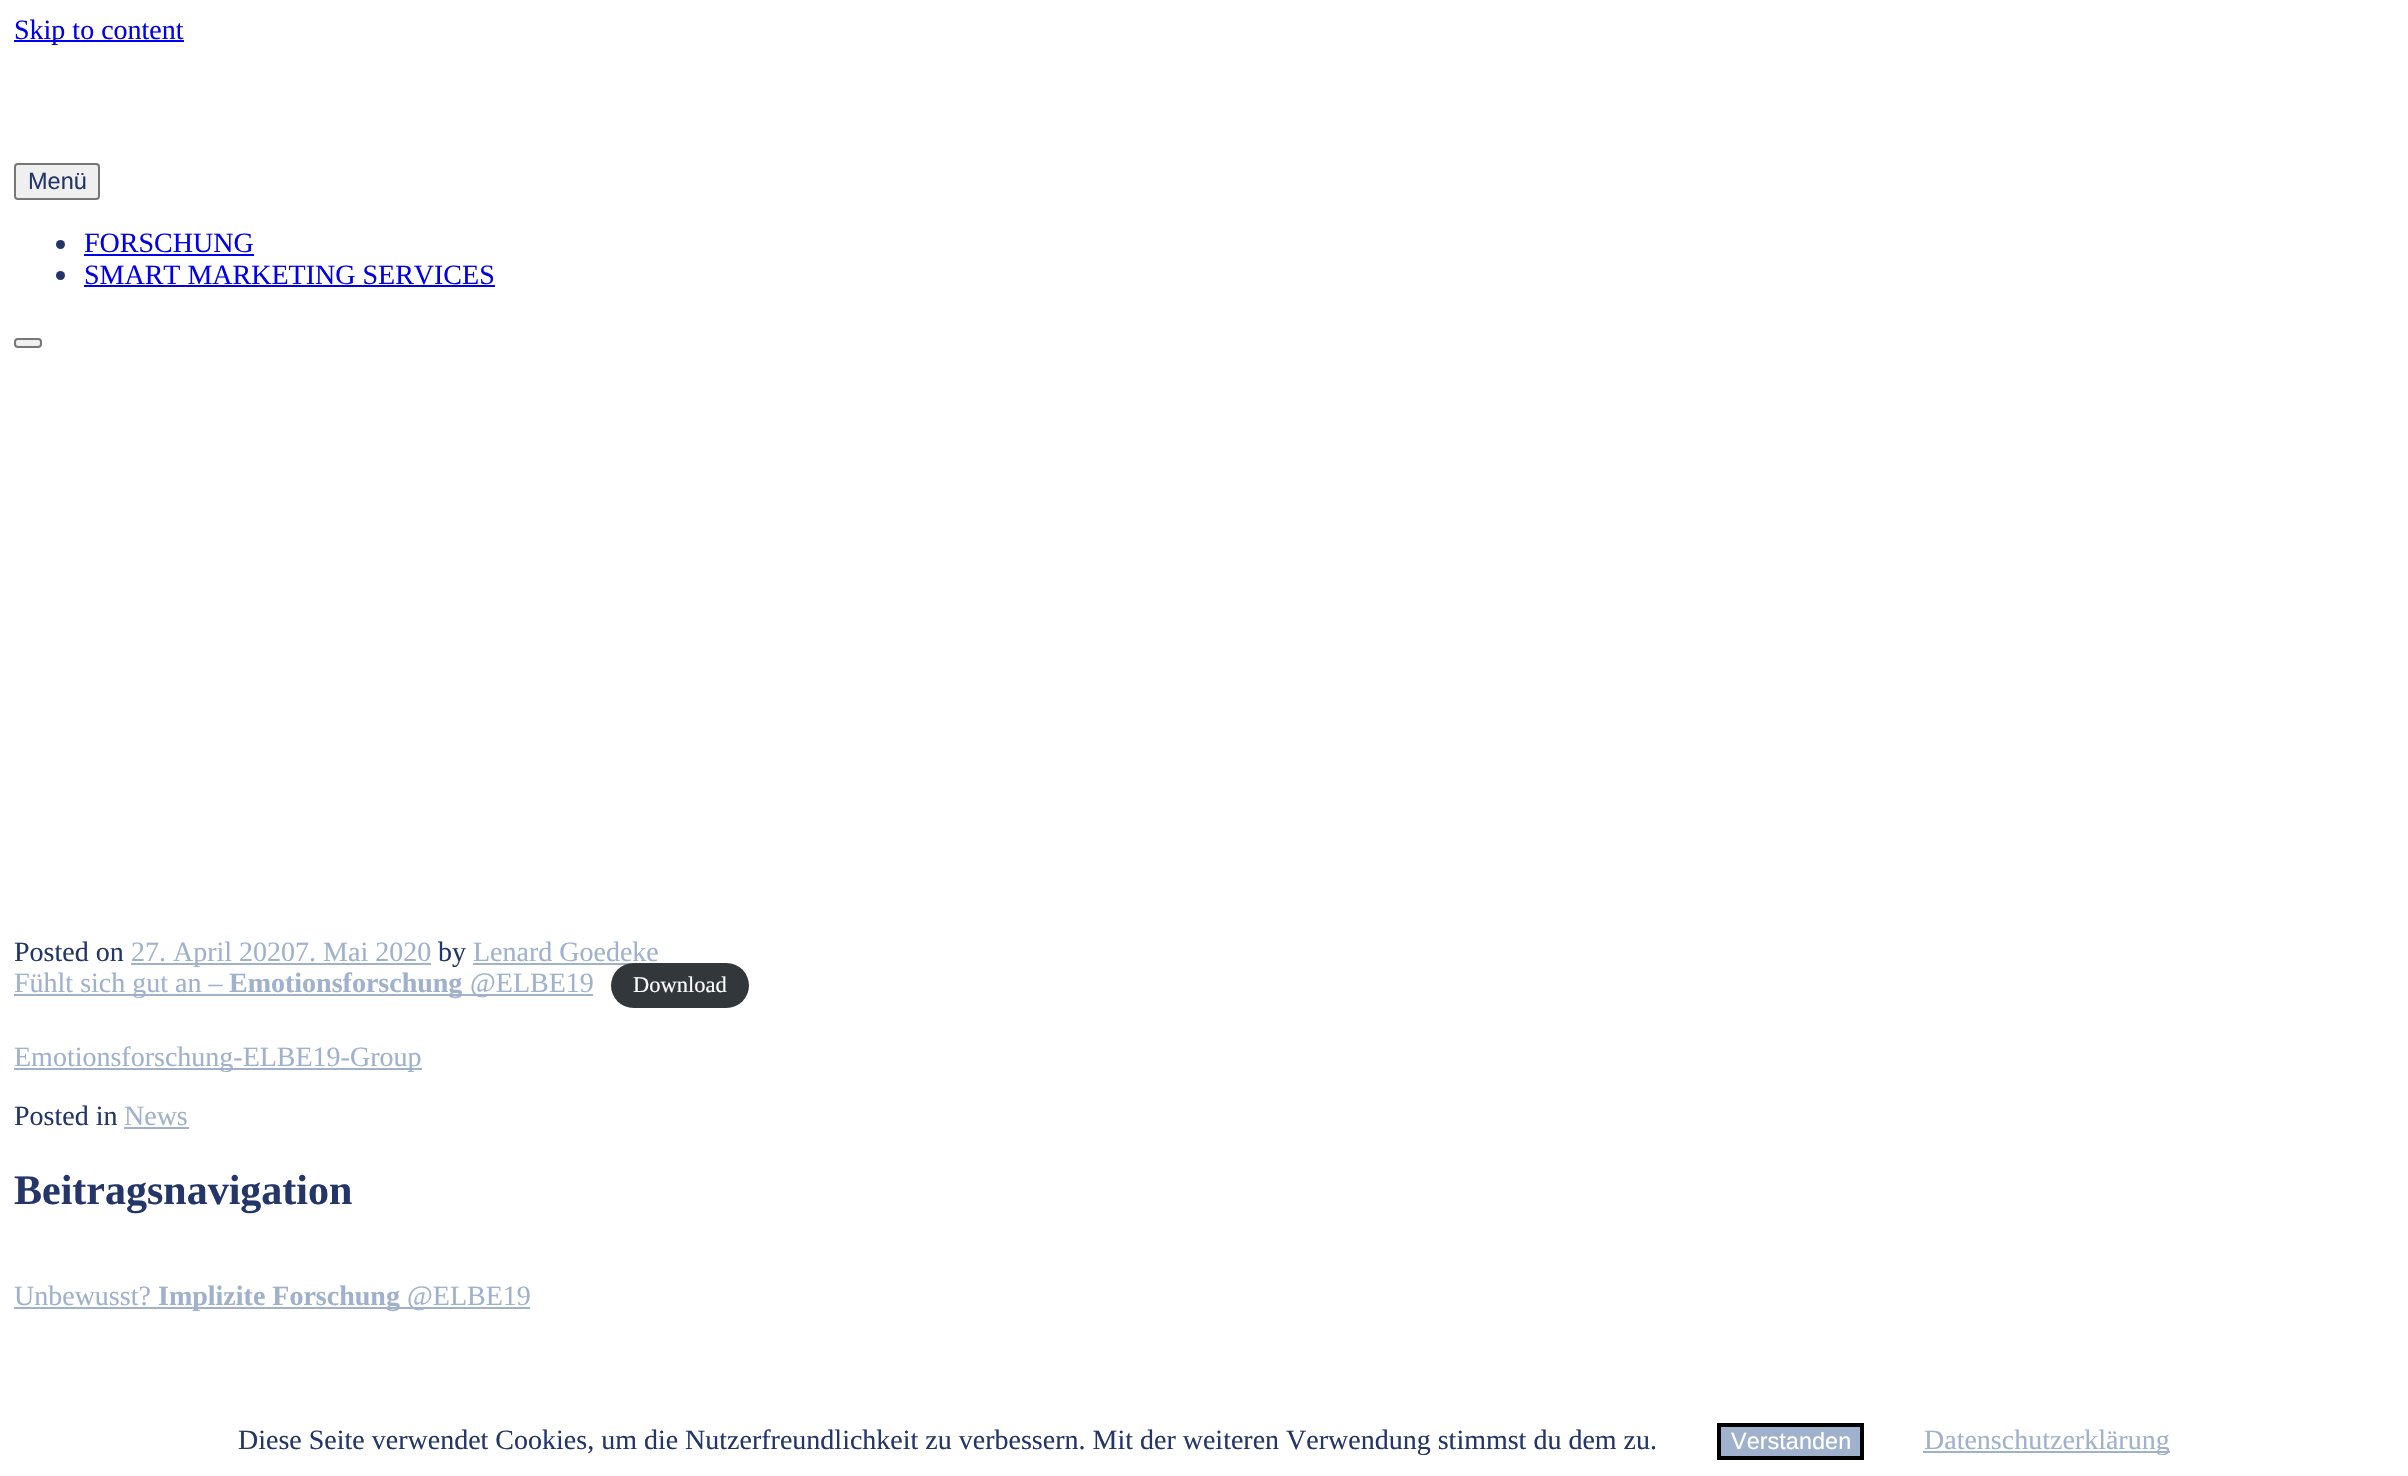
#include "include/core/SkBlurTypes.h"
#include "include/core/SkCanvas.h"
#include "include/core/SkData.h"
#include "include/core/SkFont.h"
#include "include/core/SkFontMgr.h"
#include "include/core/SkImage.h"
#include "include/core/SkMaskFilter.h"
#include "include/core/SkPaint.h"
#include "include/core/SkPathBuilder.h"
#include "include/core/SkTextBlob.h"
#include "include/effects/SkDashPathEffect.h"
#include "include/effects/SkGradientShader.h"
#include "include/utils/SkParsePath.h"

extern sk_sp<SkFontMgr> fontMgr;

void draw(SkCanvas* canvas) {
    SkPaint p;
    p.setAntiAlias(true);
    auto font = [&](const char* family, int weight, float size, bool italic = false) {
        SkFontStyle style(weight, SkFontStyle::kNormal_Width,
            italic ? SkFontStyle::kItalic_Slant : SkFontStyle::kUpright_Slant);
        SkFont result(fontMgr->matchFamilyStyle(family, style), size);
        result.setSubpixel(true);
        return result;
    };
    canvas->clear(0xFFFFFFFF);
    p.setColor(0xFF0000EE);
    canvas->drawRect(SkRect::MakeLTRB(14, 40, 184, 42), p);
    auto font1 = font("Liberation Serif", 400, 28);
    canvas->drawString("Skip to content", 14, 39, font1, p);
    p.setColor(0xFFEFEFEF);
    canvas->drawRoundRect(SkRect::MakeLTRB(15, 164, 99, 199), 3, 3, p);
    p.setStyle(SkPaint::kStroke_Style);
    p.setStrokeWidth(2);
    p.setColor(0xFF767676);
    canvas->drawRoundRect(SkRect::MakeLTRB(15, 164, 99, 199), 3, 3, p);
    auto font2 = font("Liberation Sans", 400, 23.5f);
    p.setStyle(SkPaint::kFill_Style);
    p.setColor(0xFF243669);
    canvas->drawString("Menü", 28, 189, font2, p);
    canvas->drawCircle(60.5f, 244.5f, 4.5f, p);
    p.setColor(0xFF0000EE);
    canvas->drawString("FORSCHUNG", 84, 252, font1, p);
    canvas->drawRect(SkRect::MakeLTRB(84, 254, 254, 256), p);
    p.setColor(0xFF243669);
    canvas->drawCircle(60.5f, 275.5f, 4.5f, p);
    p.setColor(0xFF0000EE);
    canvas->drawString("SMART MARKETING SERVICES", 84, 284, font1, p);
    canvas->drawRect(SkRect::MakeLTRB(84, 285, 495, 287), p);
    p.setColor(0xFFEFEFEF);
    canvas->drawRoundRect(SkRect::MakeLTRB(15, 339, 41, 347), 3, 3, p);
    p.setStyle(SkPaint::kStroke_Style);
    p.setColor(0xFF767676);
    canvas->drawRoundRect(SkRect::MakeLTRB(15, 339, 41, 347), 3, 3, p);
    p.setStyle(SkPaint::kFill_Style);
    p.setColor(0xFF243669);
    canvas->drawString("Posted on", 14, 961, font1, p);
    p.setColor(0xFF9FB1CC);
    canvas->drawRect(SkRect::MakeLTRB(131, 963, 431, 965), p);
    canvas->drawString("27. April 20207. Mai 2020", 131, 961, font1, p);
    p.setColor(0xFF243669);
    canvas->drawString("by", 438, 961, font1, p);
    p.setColor(0xFF9FB1CC);
    canvas->drawString("Lenard Goedeke", 473, 961, font1, p);
    canvas->drawRect(SkRect::MakeLTRB(473, 963, 633, 965), p);
    canvas->drawRect(SkRect::MakeLTRB(14, 994, 201, 996), p);
    canvas->drawString("Fühlt sich gut an –", 14, 992, font1, p);
    canvas->drawRect(SkRect::MakeLTRB(201, 994, 462, 996), p);
    auto font3 = font("Liberation Serif", 700, 28);
    canvas->drawString("Emotionsforschung", 229, 992, font3, p);
    canvas->drawRect(SkRect::MakeLTRB(462, 994, 593, 996), p);
    canvas->drawString("@ELBE19", 470, 992, font1, p);
    p.setColor(0xFF32373C);
    canvas->drawRoundRect(SkRect::MakeLTRB(611, 963, 749, 1008), 22.5f, 22.5f, p);
    auto font4 = font("Liberation Serif", 400, 22.5f);
    p.setColor(0xFFFFFFFF);
    canvas->drawString("Download", 633, 992, font4, p);
    p.setColor(0xFF9FB1CC);
    canvas->drawRect(SkRect::MakeLTRB(14, 1068, 422, 1070), p);
    canvas->drawString("Emotionsforschung-ELBE19-Group", 14, 1066, font1, p);
    p.setColor(0xFF243669);
    canvas->drawString("Posted in", 14, 1125, font1, p);
    p.setColor(0xFF9FB1CC);
    canvas->drawString("News", 124, 1125, font1, p);
    canvas->drawRect(SkRect::MakeLTRB(124, 1127, 189, 1129), p);
    auto font5 = font("Liberation Serif", 700, 42);
    p.setColor(0xFF243669);
    canvas->drawString("Beitragsnavigation", 14, 1204, font5, p);
    p.setColor(0xFF9FB1CC);
    canvas->drawString("Unbewusst?", 14, 1305, font1, p);
    canvas->drawRect(SkRect::MakeLTRB(14, 1307, 399, 1309), p);
    canvas->drawString("Implizite Forschung", 158, 1305, font3, p);
    canvas->drawRect(SkRect::MakeLTRB(399, 1307, 530, 1309), p);
    canvas->drawString("@ELBE19", 407, 1305, font1, p);
    p.setColor(0xFF243669);
    canvas->drawString("Diese Seite verwendet Cookies, um die Nutzerfreundlichkeit zu verbessern. Mit der weiteren Verwendung stimmst du dem zu.", 238, 1449, font1, p);
    p.setColor(0xFF9FB1CC);
    canvas->drawRect(SkRect::MakeLTRB(1719, 1425, 1862, 1458), p);
    p.setStyle(SkPaint::kStroke_Style);
    p.setStrokeWidth(4);
    p.setColor(0xFF000000);
    canvas->drawRect(SkRect::MakeLTRB(1719, 1425, 1862, 1458), p);
    p.setStyle(SkPaint::kFill_Style);
    p.setColor(0xFFFFFFFF);
    canvas->drawString("Verstanden", 1731, 1449, font2, p);
    p.setColor(0xFF9FB1CC);
    canvas->drawRect(SkRect::MakeLTRB(1923, 1451, 2170, 1453), p);
    canvas->drawString("Datenschutzerklärung", 1924, 1449, font1, p);
}
